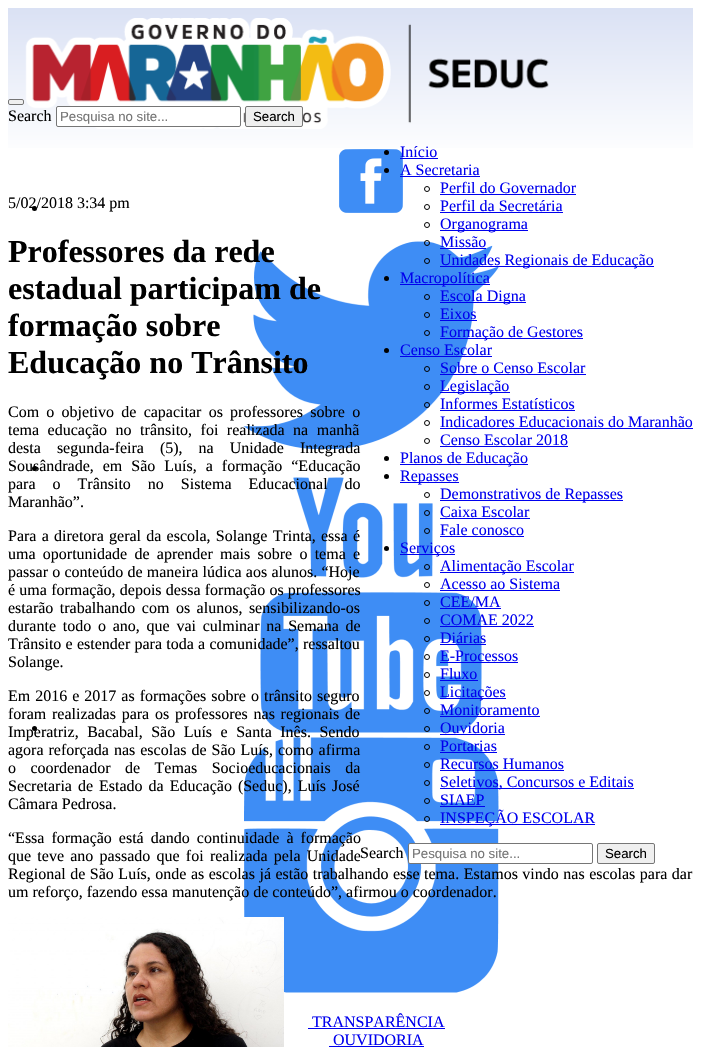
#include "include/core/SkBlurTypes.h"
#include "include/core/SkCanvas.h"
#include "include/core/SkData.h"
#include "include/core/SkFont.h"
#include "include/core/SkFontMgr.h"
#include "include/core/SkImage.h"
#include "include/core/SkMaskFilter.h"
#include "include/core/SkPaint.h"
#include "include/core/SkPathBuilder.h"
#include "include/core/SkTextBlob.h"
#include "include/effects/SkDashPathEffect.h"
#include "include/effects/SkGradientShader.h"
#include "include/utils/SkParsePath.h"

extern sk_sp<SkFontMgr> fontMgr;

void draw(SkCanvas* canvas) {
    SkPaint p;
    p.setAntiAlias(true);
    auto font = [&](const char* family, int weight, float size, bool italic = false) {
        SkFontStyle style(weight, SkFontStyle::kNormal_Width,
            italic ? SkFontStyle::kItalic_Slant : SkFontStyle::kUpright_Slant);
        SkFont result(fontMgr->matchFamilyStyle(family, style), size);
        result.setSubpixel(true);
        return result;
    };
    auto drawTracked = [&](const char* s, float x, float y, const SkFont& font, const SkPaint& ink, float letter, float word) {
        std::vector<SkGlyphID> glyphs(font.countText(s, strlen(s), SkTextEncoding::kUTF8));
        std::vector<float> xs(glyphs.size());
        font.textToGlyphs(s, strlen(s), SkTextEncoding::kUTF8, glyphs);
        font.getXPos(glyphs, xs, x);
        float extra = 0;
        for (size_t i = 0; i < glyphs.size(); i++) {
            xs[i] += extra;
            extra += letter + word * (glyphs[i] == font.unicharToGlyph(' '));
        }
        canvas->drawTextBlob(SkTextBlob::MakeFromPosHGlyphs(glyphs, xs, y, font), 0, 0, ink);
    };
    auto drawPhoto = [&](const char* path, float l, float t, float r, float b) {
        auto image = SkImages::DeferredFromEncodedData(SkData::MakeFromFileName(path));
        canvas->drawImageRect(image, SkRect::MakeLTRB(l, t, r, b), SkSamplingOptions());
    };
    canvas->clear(0xFFFFFFFF);
    {
        const SkColor colors[] = {0xFFDAE1F4, 0xFFFFFFFF};
        const float stops[] = {0, 1};
        const SkPoint ends[] = {{351, 8}, {351, 158}};
        p.setShader(SkGradientShader::MakeLinear(ends, colors, stops, 2, SkTileMode::kClamp));
        p.setAlpha(255);
    }
    canvas->drawRect(SkRect::MakeLTRB(8, 8, 693, 148), p);
    p.setShader(nullptr);
    p.setColor(0xFFEFEFEF);
    canvas->drawRoundRect(SkRect::MakeLTRB(8.5f, 99.5f, 23.5f, 104.5f), 1.5f, 1.5f, p);
    p.setStyle(SkPaint::kStroke_Style);
    p.setStrokeWidth(1);
    p.setColor(0xFF767676);
    canvas->drawRoundRect(SkRect::MakeLTRB(8.5f, 99.5f, 23.5f, 104.5f), 1.5f, 1.5f, p);
    drawPhoto("media/1.png", 25, 18, 549, 129);
    auto font1 = font("Liberation Serif", 400, 16);
    p.setStyle(SkPaint::kFill_Style);
    p.setColor(0xFF000000);
    canvas->drawString("Search", 8, 121, font1, p);
    p.setColor(0xFFFFFFFF);
    canvas->drawRoundRect(SkRect::MakeLTRB(56.5f, 106.5f, 240.5f, 126.5f), 1.5f, 1.5f, p);
    p.setStyle(SkPaint::kStroke_Style);
    p.setColor(0xFF767676);
    canvas->drawRoundRect(SkRect::MakeLTRB(56.5f, 106.5f, 240.5f, 126.5f), 1.5f, 1.5f, p);
    auto font2 = font("Liberation Sans", 400, 13.25f);
    p.setStyle(SkPaint::kFill_Style);
    p.setColor(0xFF757575);
    canvas->drawString("Pesquisa no site...", 60, 121, font2, p);
    p.setColor(0xFFEFEFEF);
    canvas->drawRoundRect(SkRect::MakeLTRB(245.5f, 106.5f, 302.5f, 126.5f), 1.5f, 1.5f, p);
    p.setStyle(SkPaint::kStroke_Style);
    p.setColor(0xFF767676);
    canvas->drawRoundRect(SkRect::MakeLTRB(245.5f, 106.5f, 302.5f, 126.5f), 1.5f, 1.5f, p);
    p.setStyle(SkPaint::kFill_Style);
    p.setColor(0xFF000000);
    canvas->drawString("Search", 253, 121, font2, p);
    drawPhoto("media/2.png", 339, 149, 403, 213);
    canvas->drawCircle(386.5f, 152.5f, 2.5f, p);
    p.setColor(0xFF0000EE);
    canvas->drawString("Início", 400, 157, font1, p);
    canvas->drawRect(SkRect::MakeLTRB(400, 158, 438, 159), p);
    p.setColor(0xFF000000);
    canvas->drawCircle(386.5f, 170.5f, 2.5f, p);
    p.setColor(0xFF0000EE);
    canvas->drawString("A Secretaria", 400, 175, font1, p);
    canvas->drawRect(SkRect::MakeLTRB(400, 176, 480, 177), p);
    p.setStyle(SkPaint::kStroke_Style);
    p.setColor(0xFF000000);
    canvas->drawCircle(427, 189, 2.5f, p);
    p.setStyle(SkPaint::kFill_Style);
    p.setColor(0xFF0000EE);
    canvas->drawString("Perfil do Governador", 440, 193, font1, p);
    canvas->drawRect(SkRect::MakeLTRB(440, 194, 576, 195), p);
    p.setStyle(SkPaint::kStroke_Style);
    p.setColor(0xFF000000);
    canvas->drawCircle(427, 207, 2.5f, p);
    p.setStyle(SkPaint::kFill_Style);
    p.setColor(0xFF0000EE);
    canvas->drawString("Perfil da Secretária", 440, 211, font1, p);
    canvas->drawRect(SkRect::MakeLTRB(440, 212, 563, 213), p);
    p.setStyle(SkPaint::kStroke_Style);
    p.setColor(0xFF000000);
    canvas->drawCircle(427, 225, 2.5f, p);
    p.setStyle(SkPaint::kFill_Style);
    p.setColor(0xFF0000EE);
    canvas->drawRect(SkRect::MakeLTRB(440, 230, 528, 231), p);
    canvas->drawString("Organograma", 440, 229, font1, p);
    drawPhoto("media/3.png", 243, 241, 499, 449);
    p.setStyle(SkPaint::kStroke_Style);
    p.setColor(0xFF000000);
    canvas->drawCircle(427, 243, 2.5f, p);
    p.setStyle(SkPaint::kFill_Style);
    p.setColor(0xFF0000EE);
    canvas->drawString("Missão", 440, 247, font1, p);
    canvas->drawRect(SkRect::MakeLTRB(440, 248, 486, 249), p);
    p.setStyle(SkPaint::kStroke_Style);
    p.setColor(0xFF000000);
    canvas->drawCircle(427, 261, 2.5f, p);
    p.setStyle(SkPaint::kFill_Style);
    p.setColor(0xFF0000EE);
    canvas->drawRect(SkRect::MakeLTRB(440, 266, 654, 267), p);
    canvas->drawString("Unidades Regionais de Educação", 440, 265, font1, p);
    p.setColor(0xFF000000);
    canvas->drawCircle(386.5f, 278.5f, 2.5f, p);
    p.setColor(0xFF0000EE);
    canvas->drawRect(SkRect::MakeLTRB(400, 284, 490, 285), p);
    canvas->drawString("Macropolítica", 400, 283, font1, p);
    p.setStyle(SkPaint::kStroke_Style);
    p.setColor(0xFF000000);
    canvas->drawCircle(427, 297, 2.5f, p);
    p.setStyle(SkPaint::kFill_Style);
    p.setColor(0xFF0000EE);
    canvas->drawRect(SkRect::MakeLTRB(440, 302, 526, 303), p);
    canvas->drawString("Escola Digna", 440, 301, font1, p);
    p.setStyle(SkPaint::kStroke_Style);
    p.setColor(0xFF000000);
    canvas->drawCircle(427, 315, 2.5f, p);
    p.setStyle(SkPaint::kFill_Style);
    p.setColor(0xFF0000EE);
    canvas->drawString("Eixos", 440, 319, font1, p);
    canvas->drawRect(SkRect::MakeLTRB(440, 320, 477, 321), p);
    p.setStyle(SkPaint::kStroke_Style);
    p.setColor(0xFF000000);
    canvas->drawCircle(427, 333, 2.5f, p);
    p.setStyle(SkPaint::kFill_Style);
    p.setColor(0xFF0000EE);
    canvas->drawRect(SkRect::MakeLTRB(440, 338, 583, 339), p);
    canvas->drawString("Formação de Gestores", 440, 337, font1, p);
    p.setColor(0xFF000000);
    canvas->drawCircle(386.5f, 350.5f, 2.5f, p);
    p.setColor(0xFF0000EE);
    canvas->drawString("Censo Escolar", 400, 355, font1, p);
    canvas->drawRect(SkRect::MakeLTRB(400, 356, 492, 357), p);
    p.setStyle(SkPaint::kStroke_Style);
    p.setColor(0xFF000000);
    canvas->drawCircle(427, 369, 2.5f, p);
    p.setStyle(SkPaint::kFill_Style);
    p.setColor(0xFF0000EE);
    canvas->drawString("Sobre o Censo Escolar", 440, 373, font1, p);
    canvas->drawRect(SkRect::MakeLTRB(440, 374, 586, 375), p);
    p.setStyle(SkPaint::kStroke_Style);
    p.setColor(0xFF000000);
    canvas->drawCircle(427, 387, 2.5f, p);
    p.setStyle(SkPaint::kFill_Style);
    p.setColor(0xFF0000EE);
    canvas->drawRect(SkRect::MakeLTRB(440, 392, 510, 393), p);
    canvas->drawString("Legislação", 440, 391, font1, p);
    p.setStyle(SkPaint::kStroke_Style);
    p.setColor(0xFF000000);
    canvas->drawCircle(427, 405, 2.5f, p);
    p.setStyle(SkPaint::kFill_Style);
    p.setColor(0xFF0000EE);
    canvas->drawString("Informes Estatísticos", 440, 409, font1, p);
    canvas->drawRect(SkRect::MakeLTRB(440, 410, 575, 411), p);
    p.setStyle(SkPaint::kStroke_Style);
    p.setColor(0xFF000000);
    canvas->drawCircle(427, 423, 2.5f, p);
    p.setStyle(SkPaint::kFill_Style);
    p.setColor(0xFF0000EE);
    canvas->drawString("Indicadores Educacionais do Maranhão", 440, 427, font1, p);
    canvas->drawRect(SkRect::MakeLTRB(440, 428, 693, 429), p);
    p.setStyle(SkPaint::kStroke_Style);
    p.setColor(0xFF000000);
    canvas->drawCircle(427, 441, 2.5f, p);
    p.setStyle(SkPaint::kFill_Style);
    p.setColor(0xFF0000EE);
    canvas->drawString("Censo Escolar 2018", 440, 445, font1, p);
    canvas->drawRect(SkRect::MakeLTRB(440, 446, 568, 447), p);
    p.setColor(0xFF000000);
    canvas->drawCircle(386.5f, 458.5f, 2.5f, p);
    p.setColor(0xFF0000EE);
    canvas->drawRect(SkRect::MakeLTRB(400, 464, 528, 465), p);
    canvas->drawString("Planos de Educação", 400, 463, font1, p);
    drawPhoto("media/4.png", 260, 477, 482, 733);
    p.setColor(0xFF000000);
    canvas->drawCircle(386.5f, 476.5f, 2.5f, p);
    p.setColor(0xFF0000EE);
    canvas->drawRect(SkRect::MakeLTRB(400, 482, 459, 483), p);
    canvas->drawString("Repasses", 400, 481, font1, p);
    p.setStyle(SkPaint::kStroke_Style);
    p.setColor(0xFF000000);
    canvas->drawCircle(427, 495, 2.5f, p);
    p.setStyle(SkPaint::kFill_Style);
    p.setColor(0xFF0000EE);
    canvas->drawRect(SkRect::MakeLTRB(440, 500, 623, 501), p);
    canvas->drawString("Demonstrativos de Repasses", 440, 499, font1, p);
    p.setStyle(SkPaint::kStroke_Style);
    p.setColor(0xFF000000);
    canvas->drawCircle(427, 513, 2.5f, p);
    p.setStyle(SkPaint::kFill_Style);
    p.setColor(0xFF0000EE);
    canvas->drawString("Caixa Escolar", 440, 517, font1, p);
    canvas->drawRect(SkRect::MakeLTRB(440, 518, 530, 519), p);
    p.setStyle(SkPaint::kStroke_Style);
    p.setColor(0xFF000000);
    canvas->drawCircle(427, 531, 2.5f, p);
    p.setStyle(SkPaint::kFill_Style);
    p.setColor(0xFF0000EE);
    canvas->drawString("Fale conosco", 440, 535, font1, p);
    canvas->drawRect(SkRect::MakeLTRB(440, 536, 524, 537), p);
    p.setColor(0xFF000000);
    canvas->drawCircle(386.5f, 548.5f, 2.5f, p);
    p.setColor(0xFF0000EE);
    canvas->drawRect(SkRect::MakeLTRB(400, 554, 455, 555), p);
    canvas->drawString("Serviços", 400, 553, font1, p);
    p.setStyle(SkPaint::kStroke_Style);
    p.setColor(0xFF000000);
    canvas->drawCircle(427, 567, 2.5f, p);
    p.setStyle(SkPaint::kFill_Style);
    p.setColor(0xFF0000EE);
    canvas->drawRect(SkRect::MakeLTRB(440, 572, 574, 573), p);
    canvas->drawString("Alimentação Escolar", 440, 571, font1, p);
    p.setStyle(SkPaint::kStroke_Style);
    p.setColor(0xFF000000);
    canvas->drawCircle(427, 585, 2.5f, p);
    p.setStyle(SkPaint::kFill_Style);
    p.setColor(0xFF0000EE);
    canvas->drawString("Acesso ao Sistema", 440, 589, font1, p);
    canvas->drawRect(SkRect::MakeLTRB(440, 590, 560, 591), p);
    p.setStyle(SkPaint::kStroke_Style);
    p.setColor(0xFF000000);
    canvas->drawCircle(427, 603, 2.5f, p);
    p.setStyle(SkPaint::kFill_Style);
    p.setColor(0xFF0000EE);
    canvas->drawString("CEE/MA", 440, 607, font1, p);
    canvas->drawRect(SkRect::MakeLTRB(440, 608, 501, 609), p);
    p.setStyle(SkPaint::kStroke_Style);
    p.setColor(0xFF000000);
    canvas->drawCircle(427, 621, 2.5f, p);
    p.setStyle(SkPaint::kFill_Style);
    p.setColor(0xFF0000EE);
    canvas->drawString("COMAE 2022", 440, 625, font1, p);
    canvas->drawRect(SkRect::MakeLTRB(440, 626, 534, 627), p);
    p.setStyle(SkPaint::kStroke_Style);
    p.setColor(0xFF000000);
    canvas->drawCircle(427, 639, 2.5f, p);
    p.setStyle(SkPaint::kFill_Style);
    p.setColor(0xFF0000EE);
    canvas->drawString("Diárias", 440, 643, font1, p);
    canvas->drawRect(SkRect::MakeLTRB(440, 644, 486, 645), p);
    p.setStyle(SkPaint::kStroke_Style);
    p.setColor(0xFF000000);
    canvas->drawCircle(427, 657, 2.5f, p);
    p.setStyle(SkPaint::kFill_Style);
    p.setColor(0xFF0000EE);
    canvas->drawString("E-Processos", 440, 661, font1, p);
    canvas->drawRect(SkRect::MakeLTRB(440, 662, 518, 663), p);
    p.setStyle(SkPaint::kStroke_Style);
    p.setColor(0xFF000000);
    canvas->drawCircle(427, 675, 2.5f, p);
    p.setStyle(SkPaint::kFill_Style);
    p.setColor(0xFF0000EE);
    canvas->drawString("Fluxo", 440, 679, font1, p);
    canvas->drawRect(SkRect::MakeLTRB(440, 680, 478, 681), p);
    p.setStyle(SkPaint::kStroke_Style);
    p.setColor(0xFF000000);
    canvas->drawCircle(427, 693, 2.5f, p);
    p.setStyle(SkPaint::kFill_Style);
    p.setColor(0xFF0000EE);
    canvas->drawRect(SkRect::MakeLTRB(440, 698, 506, 699), p);
    canvas->drawString("Licitações", 440, 697, font1, p);
    p.setStyle(SkPaint::kStroke_Style);
    p.setColor(0xFF000000);
    canvas->drawCircle(427, 711, 2.5f, p);
    p.setStyle(SkPaint::kFill_Style);
    p.setColor(0xFF0000EE);
    canvas->drawString("Monitoramento", 440, 715, font1, p);
    canvas->drawRect(SkRect::MakeLTRB(440, 716, 540, 717), p);
    p.setStyle(SkPaint::kStroke_Style);
    p.setColor(0xFF000000);
    canvas->drawCircle(427, 729, 2.5f, p);
    p.setStyle(SkPaint::kFill_Style);
    p.setColor(0xFF0000EE);
    canvas->drawString("Ouvidoria", 440, 733, font1, p);
    canvas->drawRect(SkRect::MakeLTRB(440, 734, 505, 735), p);
    drawPhoto("media/5.png", 244, 737, 499, 993);
    p.setStyle(SkPaint::kStroke_Style);
    p.setColor(0xFF000000);
    canvas->drawCircle(427, 747, 2.5f, p);
    p.setStyle(SkPaint::kFill_Style);
    p.setColor(0xFF0000EE);
    canvas->drawString("Portarias", 440, 751, font1, p);
    canvas->drawRect(SkRect::MakeLTRB(440, 752, 497, 753), p);
    p.setStyle(SkPaint::kStroke_Style);
    p.setColor(0xFF000000);
    canvas->drawCircle(427, 765, 2.5f, p);
    p.setStyle(SkPaint::kFill_Style);
    p.setColor(0xFF0000EE);
    canvas->drawString("Recursos Humanos", 440, 769, font1, p);
    canvas->drawRect(SkRect::MakeLTRB(440, 770, 564, 771), p);
    p.setStyle(SkPaint::kStroke_Style);
    p.setColor(0xFF000000);
    canvas->drawCircle(427, 783, 2.5f, p);
    p.setStyle(SkPaint::kFill_Style);
    p.setColor(0xFF0000EE);
    canvas->drawRect(SkRect::MakeLTRB(440, 788, 634, 789), p);
    canvas->drawString("Seletivos, Concursos e Editais", 440, 787, font1, p);
    p.setStyle(SkPaint::kStroke_Style);
    p.setColor(0xFF000000);
    canvas->drawCircle(427, 801, 2.5f, p);
    p.setStyle(SkPaint::kFill_Style);
    p.setColor(0xFF0000EE);
    canvas->drawString("SIAEP", 440, 805, font1, p);
    canvas->drawRect(SkRect::MakeLTRB(440, 806, 485, 807), p);
    p.setStyle(SkPaint::kStroke_Style);
    p.setColor(0xFF000000);
    canvas->drawCircle(427, 819, 2.5f, p);
    p.setStyle(SkPaint::kFill_Style);
    p.setColor(0xFF0000EE);
    canvas->drawRect(SkRect::MakeLTRB(440, 824, 595, 825), p);
    canvas->drawString("INSPEÇÃO ESCOLAR", 440, 823, font1, p);
    p.setColor(0xFF000000);
    canvas->drawString("Search", 360, 858, font1, p);
    p.setColor(0xFFFFFFFF);
    canvas->drawRoundRect(SkRect::MakeLTRB(408.5f, 843.5f, 592.5f, 863.5f), 1.5f, 1.5f, p);
    p.setStyle(SkPaint::kStroke_Style);
    p.setColor(0xFF767676);
    canvas->drawRoundRect(SkRect::MakeLTRB(408.5f, 843.5f, 592.5f, 863.5f), 1.5f, 1.5f, p);
    p.setStyle(SkPaint::kFill_Style);
    p.setColor(0xFF757575);
    canvas->drawString("Pesquisa no site...", 412, 858, font2, p);
    p.setColor(0xFFEFEFEF);
    canvas->drawRoundRect(SkRect::MakeLTRB(597.5f, 843.5f, 654.5f, 863.5f), 1.5f, 1.5f, p);
    p.setStyle(SkPaint::kStroke_Style);
    p.setColor(0xFF767676);
    canvas->drawRoundRect(SkRect::MakeLTRB(597.5f, 843.5f, 654.5f, 863.5f), 1.5f, 1.5f, p);
    p.setStyle(SkPaint::kFill_Style);
    p.setColor(0xFF000000);
    canvas->drawString("Search", 605, 858, font2, p);
    canvas->drawCircle(34.5f, 208.5f, 2.5f, p);
    canvas->drawCircle(34.5f, 468.5f, 2.5f, p);
    canvas->drawCircle(34.5f, 728.5f, 2.5f, p);
    p.setColor(0xFF0000EE);
    canvas->drawString("TRANSPARÊNCIA", 312, 1027, font1, p);
    canvas->drawRect(SkRect::MakeLTRB(308, 1028, 445, 1029), p);
    canvas->drawString("OUVIDORIA", 333, 1045, font1, p);
    canvas->drawRect(SkRect::MakeLTRB(329, 1046, 424, 1047), p);
    p.setColor(0xFF000000);
    canvas->drawString("5/02/2018 3:34 pm", 8, 208, font1, p);
    auto font3 = font("Liberation Serif", 700, 32);
    {
        const struct { const char* s; float x, y; } items[] = {
            {"Professores da rede", 8, 262},
            {"estadual participam de", 8, 299},
            {"formação sobre", 8, 336},
            {"Educação no Trânsito", 8, 373},
        };
        for (auto [s, x, y] : items) {
            canvas->drawString(s, x, y, font3, p);
        }
    }
    drawTracked("Com o objetivo de capacitar os professores sobre o", 8, 417, font1, p, 0, 3.25f);
    drawTracked("tema educação no trânsito, foi realizada na manhã", 8, 435, font1, p, 0, 4.5f);
    drawTracked("desta segunda-feira (5), na Unidade Integrada", 8, 453, font1, p, 0, 12);
    drawTracked("Sousândrade, em São Luís, a formação “Educação", 8, 471, font1, p, 0, 5);
    drawTracked("para o Trânsito no Sistema Educacional do", 8, 489, font1, p, 0, 13);
    canvas->drawString("Maranhão”.", 8, 507, font1, p);
    drawTracked("Para a diretora geral da escola, Solange Trinta, essa é", 8, 541, font1, p, 0, 1.25f);
    drawTracked("uma oportunidade de aprender mais sobre o tema e", 8, 559, font1, p, 0, 3.25f);
    drawTracked("passar o conteúdo de maneira lúdica aos alunos. “Hoje", 8, 577, font1, p, 0, 0.25f);
    drawTracked("é uma formação, depois dessa formação os professores", 8, 595, font1, p, 0, 0.25f);
    drawTracked("estarão trabalhando com os alunos, sensibilizando-os", 8, 613, font1, p, 0, 2.5f);
    drawTracked("durante todo o ano, que vai culminar na Semana de", 8, 631, font1, p, 0, 2.75f);
    drawTracked("Trânsito e estender para toda a comunidade”, ressaltou", 8, 649, font1, p, 0, 0.25f);
    canvas->drawString("Solange.", 8, 667, font1, p);
    drawTracked("Em 2016 e 2017 as formações sobre o trânsito seguro", 8, 701, font1, p, 0, 1);
    drawTracked("foram realizadas para os professores nas regionais de", 8, 719, font1, p, 0, 1.75f);
    drawTracked("Imperatriz, Bacabal, São Luís e Santa Inês. Sendo", 8, 737, font1, p, 0, 4.5f);
    drawTracked("agora reforçada nas escolas de São Luís, como afirma", 8, 755, font1, p, 0, 1);
    drawTracked("o coordenador de Temas Socioeducacionais da", 8, 773, font1, p, 0, 10.5f);
    drawTracked("Secretaria de Estado da Educação (Seduc), Luís José", 8, 791, font1, p, 0, 2);
    canvas->drawString("Câmara Pedrosa.", 8, 809, font1, p);
    drawTracked("“Essa formação está dando continuidade à formação", 8, 843, font1, p, 0, 3);
    drawTracked("que teve ano passado que foi realizada pela Unidade", 8, 861, font1, p, 0, 2.25f);
    drawTracked("Regional de São Luís, onde as escolas já estão trabalhando esse tema. Estamos vindo nas escolas para dar", 8, 879, font1, p, 0, 0.5f);
    canvas->drawString("um reforço, fazendo essa manutenção de conteúdo”, afirmou o coordenador.", 8, 897, font1, p);
    drawPhoto("media/6.png", 8, 917, 284, 1047);
}
